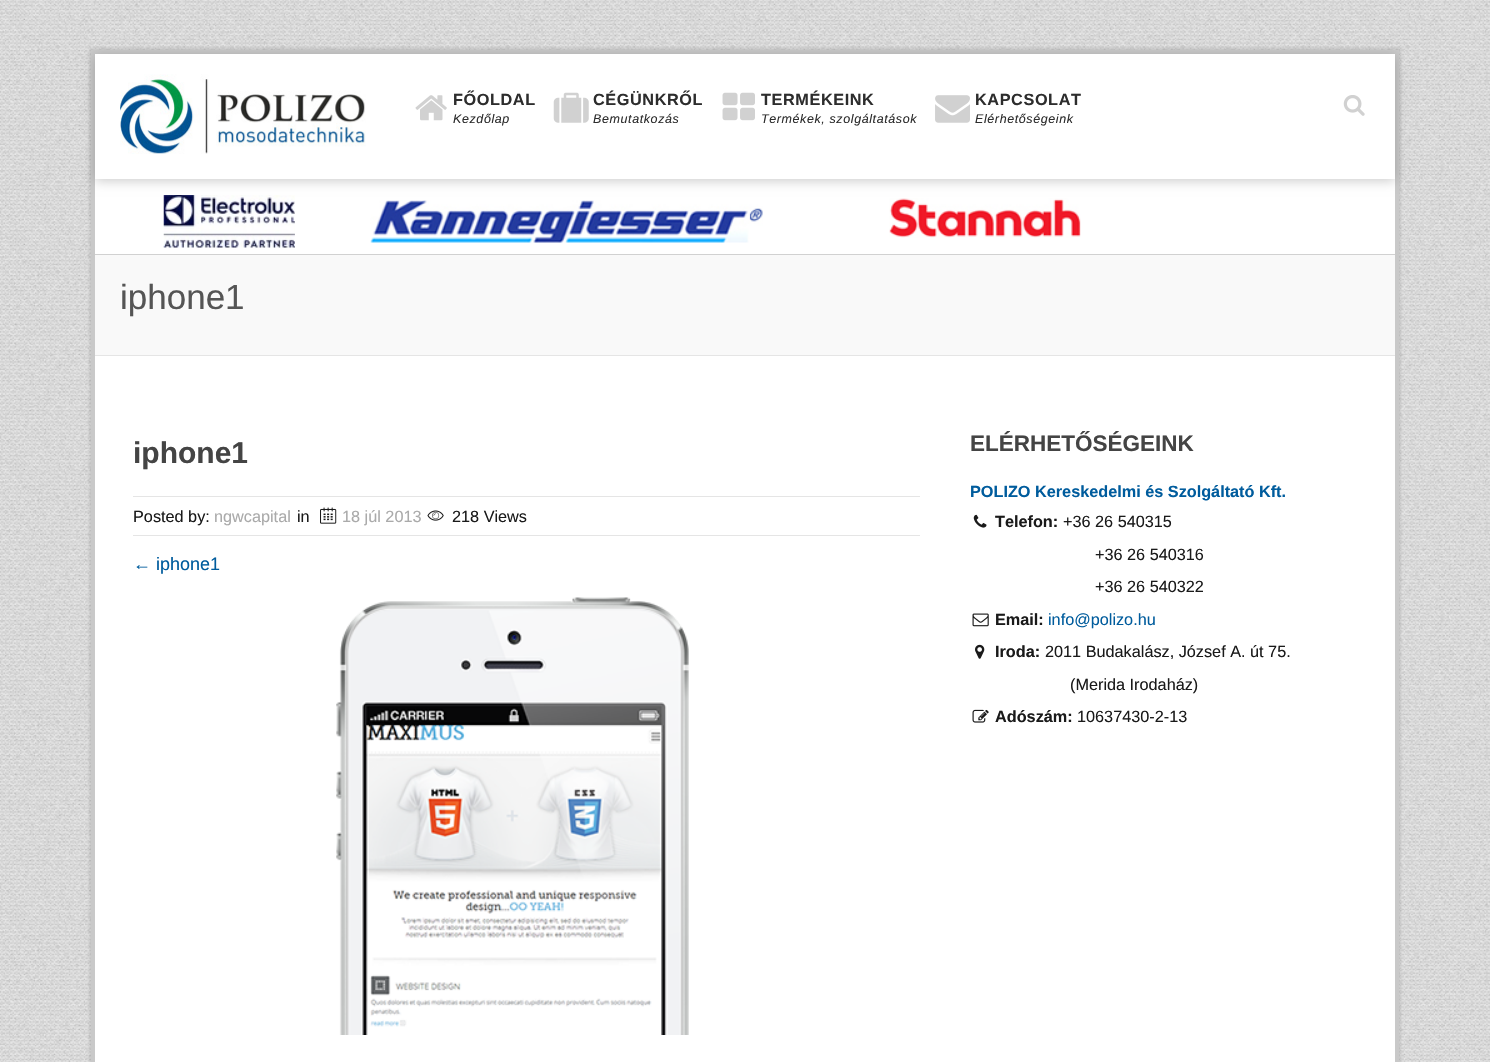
#include "include/core/SkBlurTypes.h"
#include "include/core/SkCanvas.h"
#include "include/core/SkData.h"
#include "include/core/SkFont.h"
#include "include/core/SkFontMgr.h"
#include "include/core/SkImage.h"
#include "include/core/SkMaskFilter.h"
#include "include/core/SkPaint.h"
#include "include/core/SkPathBuilder.h"
#include "include/core/SkTextBlob.h"
#include "include/effects/SkDashPathEffect.h"
#include "include/effects/SkGradientShader.h"
#include "include/utils/SkParsePath.h"

extern sk_sp<SkFontMgr> fontMgr;

void draw(SkCanvas* canvas) {
    SkPaint p;
    p.setAntiAlias(true);
    auto font = [&](const char* family, int weight, float size, bool italic = false) {
        SkFontStyle style(weight, SkFontStyle::kNormal_Width,
            italic ? SkFontStyle::kItalic_Slant : SkFontStyle::kUpright_Slant);
        SkFont result(fontMgr->matchFamilyStyle(family, style), size);
        result.setSubpixel(true);
        return result;
    };
    auto drawTracked = [&](const char* s, float x, float y, const SkFont& font, const SkPaint& ink, float letter, float word) {
        std::vector<SkGlyphID> glyphs(font.countText(s, strlen(s), SkTextEncoding::kUTF8));
        std::vector<float> xs(glyphs.size());
        font.textToGlyphs(s, strlen(s), SkTextEncoding::kUTF8, glyphs);
        font.getXPos(glyphs, xs, x);
        float extra = 0;
        for (size_t i = 0; i < glyphs.size(); i++) {
            xs[i] += extra;
            extra += letter + word * (glyphs[i] == font.unicharToGlyph(' '));
        }
        canvas->drawTextBlob(SkTextBlob::MakeFromPosHGlyphs(glyphs, xs, y, font), 0, 0, ink);
    };
    auto drawPhoto = [&](const char* path, float l, float t, float r, float b) {
        auto image = SkImages::DeferredFromEncodedData(SkData::MakeFromFileName(path));
        canvas->drawImageRect(image, SkRect::MakeLTRB(l, t, r, b), SkSamplingOptions());
    };
    canvas->clear(0xFFFFFFFF);
    drawPhoto("media/1.png", 0, 0, 1490, 1062);
    p.setColor(0x4D999799);
    p.setMaskFilter(SkMaskFilter::MakeBlur(kNormal_SkBlurStyle, 1));
    canvas->drawRect(SkRect::MakeLTRB(89, 48, 1401, 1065), p);
    p.setMaskFilter(nullptr);
    p.setColor(0xFFFFFFFF);
    canvas->drawRect(SkRect::MakeLTRB(95, 179, 1395, 1062), p);
    p.setStyle(SkPaint::kStroke_Style);
    p.setStrokeWidth(4);
    p.setColor(0xFFC9C9C9);
    canvas->drawRect(SkRect::MakeLTRB(93, 52, 1397, 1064), p);
    drawPhoto("media/8.png", 163, 195, 295, 248);
    drawPhoto("media/10.png", 889, 198, 1081, 238);
    p.setStyle(SkPaint::kFill_Style);
    p.setColor(0x33000000);
    p.setMaskFilter(SkMaskFilter::MakeBlur(kNormal_SkBlurStyle, 5.5f));
    canvas->drawRect(SkRect::MakeLTRB(95, 56, 1395, 181), p);
    p.setMaskFilter(nullptr);
    p.setColor(0xFFFFFFFF);
    canvas->drawRect(SkRect::MakeLTRB(95, 54, 1395, 179), p);
    drawPhoto("media/2.png", 120, 74, 366, 154);
    drawPhoto("media/3.png", 415, 95, 447, 121);
    auto font1 = font("Liberation Sans", 700, 16.25f);
    p.setColor(0xFF2D2D2D);
    drawTracked("FŐOLDAL", 453, 105, font1, p, 0.6f, 0);
    auto font2 = font("Liberation Sans", 400, 12.5f, true);
    drawTracked("Kezdőlap", 453, 123, font2, p, 0.6f, 0);
    drawPhoto("media/4.png", 553, 92, 589, 123);
    drawTracked("CÉGÜNKRŐL", 593, 105, font1, p, 0.6f, 0);
    drawTracked("Bemutatkozás", 593, 123, font2, p, 0.6f, 0);
    drawPhoto("media/5.png", 722, 92, 755, 121);
    drawTracked("TERMÉKEINK", 761, 105, font1, p, 0.6f, 0);
    drawTracked("Termékek, szolgáltatások", 761, 123, font2, p, 0.6f, 0);
    drawPhoto("media/6.png", 935, 95, 970, 123);
    drawTracked("KAPCSOLAT", 975, 105, font1, p, 0.6f, 0);
    drawTracked("Elérhetőségeink", 975, 123, font2, p, 0.6f, 0);
    drawPhoto("media/7.png", 1343, 95, 1365, 116);
    drawPhoto("media/9.png", 370, 200, 763, 243);
    {
        const struct { float l, t, r, b; SkColor color; } items[] = {
            {95, 254, 1395, 255, 0xFFD1D1D1},
            {95, 255, 1395, 355, 0xFFF9F9F9},
            {95, 355, 1395, 356, 0xFFE5E5E5},
        };
        for (auto [l, t, r, b, color] : items) {
            p.setColor(color);
            canvas->drawRect(SkRect::MakeLTRB(l, t, r, b), p);
        }
    }
    auto font3 = font("Liberation Sans", 400, 35);
    p.setColor(0xFF555555);
    canvas->drawString("iphone1", 120, 309, font3, p);
    auto font4 = font("Liberation Sans", 700, 30);
    p.setColor(0xFF444444);
    canvas->drawString("iphone1", 133, 463, font4, p);
    p.setColor(0xFFE5E5E5);
    canvas->drawRect(SkRect::MakeLTRB(133, 496, 920, 497), p);
    canvas->drawRect(SkRect::MakeLTRB(133, 535, 920, 536), p);
    auto font5 = font("Liberation Sans", 400, 16.25f);
    p.setColor(0xFF1A1A1A);
    canvas->drawString("Posted by:", 133, 522, font5, p);
    p.setColor(0xFFAAAAAA);
    canvas->drawString("ngwcapital", 214, 522, font5, p);
    p.setColor(0xFF1A1A1A);
    canvas->drawString("in", 297, 522, font5, p);
    drawPhoto("media/11.png", 320, 507, 337, 524);
    p.setColor(0xFFAAAAAA);
    canvas->drawString("18 júl 2013", 342, 522, font5, p);
    drawPhoto("media/12.png", 427, 510, 444, 521);
    p.setColor(0xFF1A1A1A);
    canvas->drawString("218 Views", 452, 522, font5, p);
    auto font6 = font("Liberation Sans", 400, 18);
    p.setColor(0xFF005C9D);
    canvas->drawString("← iphone1", 133, 570, font6, p);
    drawPhoto("media/13.png", 336, 597, 689, 1035);
    auto font7 = font("Liberation Sans", 700, 22.5f);
    p.setColor(0xFF444444);
    canvas->drawString("ELÉRHETŐSÉGEINK", 970, 451, font7, p);
    p.setColor(0xFF005C9D);
    canvas->drawString("POLIZO Kereskedelmi és Szolgáltató Kft.", 970, 497, font1, p);
    drawPhoto("media/14.png", 973, 514, 987, 528);
    p.setColor(0xFF1A1A1A);
    canvas->drawString("Telefon:", 995, 527, font1, p);
    {
        const struct { const char* s; float x, y; } items[] = {
            {"+36 26 540315", 1063, 527},
            {"+36 26 540316", 1095, 560},
            {"+36 26 540322", 1095, 592},
        };
        for (auto [s, x, y] : items) {
            canvas->drawString(s, x, y, font5, p);
        }
    }
    drawPhoto("media/15.png", 972, 613, 989, 627);
    canvas->drawString("Email:", 995, 625, font1, p);
    p.setColor(0xFF005C9D);
    canvas->drawString("info@polizo.hu", 1048, 625, font5, p);
    drawPhoto("media/16.png", 975, 644, 985, 659);
    p.setColor(0xFF1A1A1A);
    canvas->drawString("Iroda:", 995, 657, font1, p);
    canvas->drawString("2011 Budakalász, József A. út 75.", 1045, 657, font5, p);
    canvas->drawString("(Merida Irodaház)", 1070, 690, font5, p);
    drawPhoto("media/17.png", 972, 709, 989, 723);
    canvas->drawString("Adószám:", 995, 722, font1, p);
    canvas->drawString("10637430-2-13", 1077, 722, font5, p);
}
